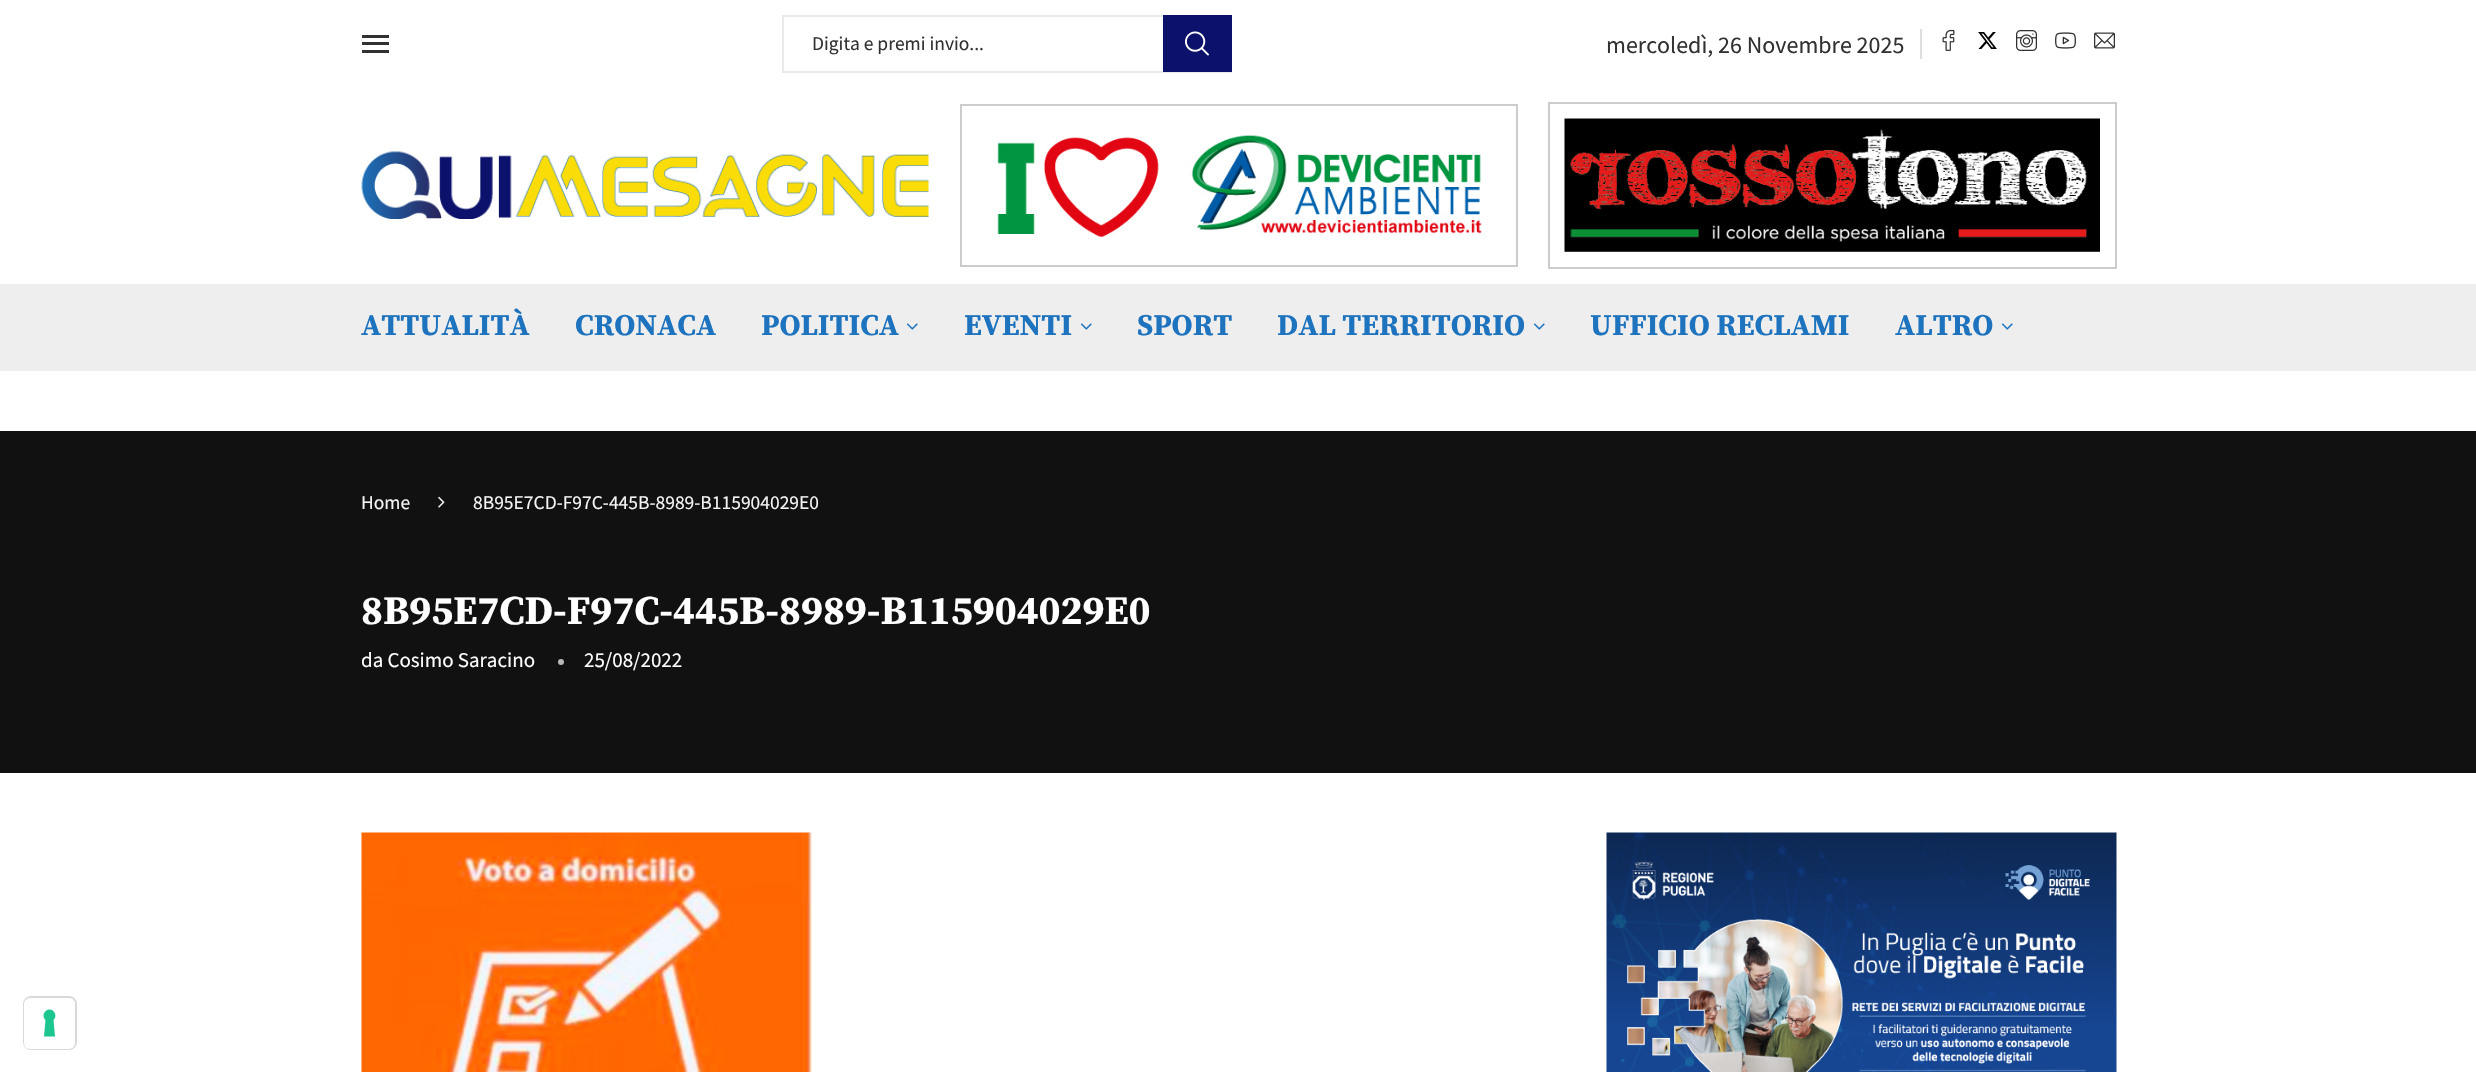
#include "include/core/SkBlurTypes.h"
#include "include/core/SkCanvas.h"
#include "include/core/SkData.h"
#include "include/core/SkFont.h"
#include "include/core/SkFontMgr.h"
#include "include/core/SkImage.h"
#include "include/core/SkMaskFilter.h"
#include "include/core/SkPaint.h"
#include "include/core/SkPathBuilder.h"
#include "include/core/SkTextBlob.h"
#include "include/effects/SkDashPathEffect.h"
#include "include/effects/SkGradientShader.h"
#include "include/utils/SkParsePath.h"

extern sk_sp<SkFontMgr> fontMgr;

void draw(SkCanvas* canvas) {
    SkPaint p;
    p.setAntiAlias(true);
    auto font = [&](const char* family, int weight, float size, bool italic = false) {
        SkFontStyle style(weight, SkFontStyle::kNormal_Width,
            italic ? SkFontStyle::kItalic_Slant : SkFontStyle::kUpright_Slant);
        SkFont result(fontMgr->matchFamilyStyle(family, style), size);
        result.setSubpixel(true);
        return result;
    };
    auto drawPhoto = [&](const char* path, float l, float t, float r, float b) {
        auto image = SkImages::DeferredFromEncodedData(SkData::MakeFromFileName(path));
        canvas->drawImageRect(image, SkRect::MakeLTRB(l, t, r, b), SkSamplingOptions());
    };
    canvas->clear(0xFFFFFFFF);
    {
        const struct { float l, t, r, b; SkColor color; } items[] = {
            {362, 35, 389, 38, 0xFF313131},
            {362, 50, 389, 53, 0xFF313131},
            {362, 42, 389, 45, 0xFF313131},
            {782, 15, 1163, 17, 0xFFE9E9E9},
            {782, 71, 1232, 73, 0xFFE9E9E9},
            {782, 15, 784, 72, 0xFFE9E9E9},
        };
        for (auto [l, t, r, b, color] : items) {
            p.setColor(color);
            canvas->drawRect(SkRect::MakeLTRB(l, t, r, b), p);
        }
    }
    auto font1 = font("Source Sans Pro", 400, 19.5f);
    p.setColor(0xFF313131);
    canvas->drawString("Digita e premi invio...", 812, 50, font1, p);
    p.setColor(0xFF0C116B);
    canvas->drawRect(SkRect::MakeLTRB(1163, 15, 1232, 72), p);
    drawPhoto("media/1.png", 1185, 31, 1209, 56);
    auto font2 = font("Source Sans Pro", 400, 24);
    p.setColor(0xFF313131);
    canvas->drawString("mercoledì, 26 Novembre 2025", 1606, 53, font2, p);
    p.setColor(0xFFDEDEDE);
    canvas->drawRect(SkRect::MakeLTRB(1920, 29, 1922, 59), p);
    drawPhoto("media/2.png", 1942, 29, 1955, 51);
    drawPhoto("media/3.png", 1978, 32, 1997, 49);
    drawPhoto("media/4.png", 2016, 30, 2037, 51);
    drawPhoto("media/5.png", 2055, 32, 2076, 49);
    drawPhoto("media/6.png", 2094, 32, 2115, 49);
    drawPhoto("media/7.png", 361, 151, 929, 219);
    p.setStyle(SkPaint::kStroke_Style);
    p.setStrokeWidth(2);
    p.setColor(0xFFCCCCCC);
    canvas->drawRect(SkRect::MakeLTRB(961, 105, 1517, 266), p);
    drawPhoto("media/8.png", 997, 135, 1482, 237);
    canvas->drawRect(SkRect::MakeLTRB(1549, 103, 2116, 268), p);
    drawPhoto("media/9.png", 1564, 118, 2100, 252);
    p.setStyle(SkPaint::kFill_Style);
    p.setColor(0xFFEEEEEE);
    canvas->drawRect(SkRect::MakeLTRB(0, 284, 2476, 371), p);
    auto font3 = font("Source Serif Pro", 700, 30);
    p.setColor(0xFF1E73BE);
    {
        const struct { const char* s; float x, y; } items[] = {
            {"ATTUALITÀ", 361, 335},
            {"CRONACA", 575, 335},
            {"POLITICA", 761, 335},
        };
        for (auto [s, x, y] : items) {
            canvas->drawString(s, x, y, font3, p);
        }
    }
    drawPhoto("media/10.png", 906, 323, 918, 330);
    canvas->drawString("EVENTI", 964, 335, font3, p);
    drawPhoto("media/10.png", 1080, 323, 1092, 330);
    canvas->drawString("SPORT", 1137, 335, font3, p);
    canvas->drawString("DAL TERRITORIO", 1277, 335, font3, p);
    drawPhoto("media/10.png", 1533, 323, 1545, 330);
    canvas->drawString("UFFICIO RECLAMI", 1590, 335, font3, p);
    canvas->drawString("ALTRO", 1895, 335, font3, p);
    drawPhoto("media/10.png", 2001, 323, 2013, 330);
    p.setColor(0xFF111111);
    canvas->drawRect(SkRect::MakeLTRB(0, 431, 2476, 773), p);
    p.setColor(0xFFF5F5F5);
    canvas->drawString("Home", 361, 509, font1, p);
    drawPhoto("media/11.png", 438, 496, 445, 508);
    canvas->drawString("8B95E7CD-F97C-445B-8989-B115904029E0", 473, 509, font1, p);
    auto font4 = font("Source Serif Pro", 700, 40.5f);
    p.setColor(0xFFFFFFFF);
    canvas->drawString("8B95E7CD-F97C-445B-8989-B115904029E0", 361, 624, font4, p);
    auto font5 = font("Source Sans Pro", 400, 21);
    canvas->drawString("da Cosimo Saracino", 361, 667, font5, p);
    p.setColor(0xFFB8B8B8);
    canvas->drawCircle(561, 662, 3, p);
    p.setColor(0xFFFFFFFF);
    canvas->drawString("25/08/2022", 584, 667, font5, p);
    drawPhoto("media/12.png", 361, 832, 812, 1072);
    drawPhoto("media/13.png", 1606, 832, 2117, 1072);
    p.setStyle(SkPaint::kStroke_Style);
    p.setColor(0xFFD9D9D9);
    canvas->drawRoundRect(SkRect::MakeLTRB(24, 997, 76, 1049), 7, 7, p);
    p.setStyle(SkPaint::kFill_Style);
    p.setColor(0xFFFFFFFF);
    canvas->drawRoundRect(SkRect::MakeLTRB(24, 998, 75, 1049), 6, 6, p);
    p.setColor(0xFF1CC691);
    canvas->drawPath(SkPathBuilder(SkPathFillType::kEvenOdd).moveTo(49.5f, 1009.5f).cubicTo(55, 1009.5f, 57.5f, 1016.5f, 53.5f, 1020).lineTo(55, 1036.5f).lineTo(44, 1036.5f).lineTo(45.5f, 1020).cubicTo(41.5f, 1016.5f, 44, 1009.5f, 49.5f, 1009.5f).close().detach(), p);
}
